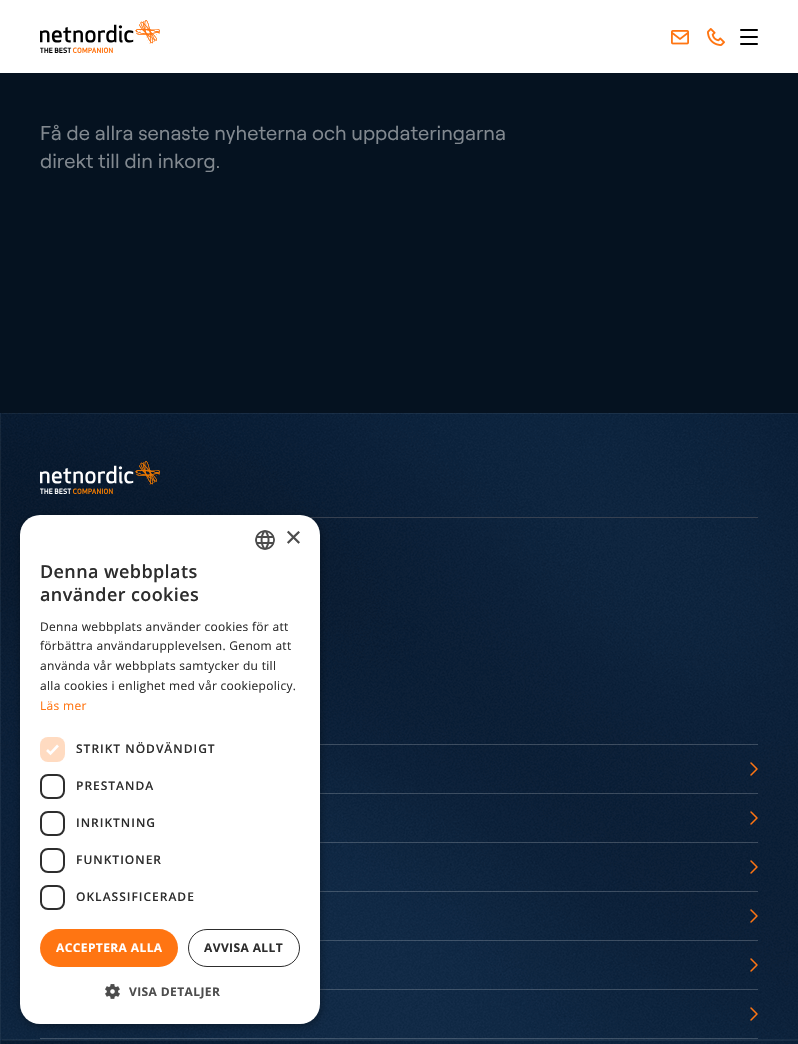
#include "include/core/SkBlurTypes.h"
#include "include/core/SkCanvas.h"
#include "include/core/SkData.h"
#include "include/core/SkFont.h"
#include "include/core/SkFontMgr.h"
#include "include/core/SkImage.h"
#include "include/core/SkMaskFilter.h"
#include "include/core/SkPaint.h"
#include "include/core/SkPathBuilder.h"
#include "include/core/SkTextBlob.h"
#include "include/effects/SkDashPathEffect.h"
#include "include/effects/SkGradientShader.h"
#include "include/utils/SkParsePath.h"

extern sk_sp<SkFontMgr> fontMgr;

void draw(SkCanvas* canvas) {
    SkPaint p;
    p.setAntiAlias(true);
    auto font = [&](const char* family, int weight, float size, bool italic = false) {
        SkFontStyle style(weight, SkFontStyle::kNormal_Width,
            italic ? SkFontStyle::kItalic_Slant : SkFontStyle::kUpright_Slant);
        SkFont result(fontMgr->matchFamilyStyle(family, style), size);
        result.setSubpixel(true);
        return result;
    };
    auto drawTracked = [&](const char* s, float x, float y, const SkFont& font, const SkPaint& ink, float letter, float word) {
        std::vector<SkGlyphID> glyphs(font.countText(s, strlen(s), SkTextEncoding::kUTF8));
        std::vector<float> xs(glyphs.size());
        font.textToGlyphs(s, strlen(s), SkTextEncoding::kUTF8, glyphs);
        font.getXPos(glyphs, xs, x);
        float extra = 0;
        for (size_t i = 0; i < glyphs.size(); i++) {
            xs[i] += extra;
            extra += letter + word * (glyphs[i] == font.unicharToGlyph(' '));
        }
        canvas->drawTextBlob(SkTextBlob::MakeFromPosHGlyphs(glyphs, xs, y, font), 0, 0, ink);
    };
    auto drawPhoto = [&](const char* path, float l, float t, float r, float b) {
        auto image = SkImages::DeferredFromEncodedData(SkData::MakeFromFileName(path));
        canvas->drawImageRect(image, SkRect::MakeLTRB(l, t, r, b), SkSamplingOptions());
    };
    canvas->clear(0xFFFFFFFF);
    drawPhoto("media/1.png", 40, 20, 160, 53);
    drawPhoto("media/2.png", 671, 30, 689, 45);
    drawPhoto("media/3.png", 707, 28, 725, 46);
    p.setColor(0xFF000000);
    canvas->drawRoundRect(SkRect::MakeLTRB(740, 29, 758, 31), 1, 1, p);
    canvas->drawRoundRect(SkRect::MakeLTRB(740, 36, 758, 38), 1, 1, p);
    canvas->drawRoundRect(SkRect::MakeLTRB(740, 43, 758, 45), 1, 1, p);
    p.setColor(0xFF051220);
    canvas->drawRect(SkRect::MakeLTRB(0, 73, 798, 413), p);
    auto font1 = font("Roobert", 400, 20);
    p.setColor(0xFF828990);
    canvas->drawString("Få de allra senaste nyheterna och uppdateringarna", 40, 140, font1, p);
    canvas->drawString("direkt till din inkorg.", 40, 168, font1, p);
    drawPhoto("media/4.png", 0, 413, 798, 1044);
    drawPhoto("media/5.png", 40, 461, 160, 494);
    p.setColor(0xFF374151);
    canvas->drawRect(SkRect::MakeLTRB(308, 517, 758, 518), p);
    p.setColor(0x33FFFFFF);
    canvas->drawRect(SkRect::MakeLTRB(320, 744, 758, 745), p);
    drawPhoto("media/6.png", 750, 762, 758, 776);
    canvas->drawRect(SkRect::MakeLTRB(320, 793, 758, 794), p);
    drawPhoto("media/7.png", 750, 811, 758, 825);
    canvas->drawRect(SkRect::MakeLTRB(320, 842, 758, 843), p);
    drawPhoto("media/8.png", 750, 860, 758, 874);
    canvas->drawRect(SkRect::MakeLTRB(320, 891, 758, 892), p);
    drawPhoto("media/9.png", 750, 909, 758, 923);
    canvas->drawRect(SkRect::MakeLTRB(320, 940, 758, 941), p);
    drawPhoto("media/10.png", 750, 958, 758, 972);
    canvas->drawRect(SkRect::MakeLTRB(320, 989, 758, 990), p);
    drawPhoto("media/11.png", 750, 1007, 758, 1021);
    canvas->drawRect(SkRect::MakeLTRB(40, 1038, 758, 1039), p);
    p.setColor(0x59000000);
    p.setMaskFilter(SkMaskFilter::MakeBlur(kNormal_SkBlurStyle, 4));
    canvas->drawRoundRect(SkRect::MakeLTRB(21, 517, 321, 1026), 20, 20, p);
    p.setMaskFilter(nullptr);
    p.setColor(0xFFFFFFFF);
    canvas->drawRoundRect(SkRect::MakeLTRB(20, 515, 320, 1024), 20, 20, p);
    drawPhoto("media/12.png", 255, 530, 275, 550);
    auto font2 = font("Liberation Sans", 400, 29);
    p.setColor(0xFF4D4D4D);
    canvas->drawString("×", 285, 547, font2, p);
    auto font3 = font("Open Sans", 600, 18);
    p.setColor(0xFF2D2D2D);
    drawTracked("Denna webbplats", 40, 578, font3, p, 0.4f, 0);
    drawTracked("använder cookies", 40, 601, font3, p, 0.4f, 0);
    auto font4 = font("Open Sans", 400, 12);
    {
        const struct { const char* s; float x, y; } items[] = {
            {"Denna webbplats använder cookies för att", 40, 631},
            {"förbättra användarupplevelsen. Genom att", 40, 650},
            {"använda vår webbplats samtycker du till", 40, 670},
            {"alla cookies i enlighet med vår cookiepolicy.", 40, 690},
        };
        for (auto [s, x, y] : items) {
            drawTracked(s, x, y, font4, p, 0.3f, 0);
        }
    }
    p.setColor(0xFFFF7512);
    drawTracked("Läs mer", 40, 710, font4, p, 0.3f, 0);
    p.setColor(0xFFFFDBC1);
    canvas->drawRoundRect(SkRect::MakeLTRB(40, 737, 65, 762), 8, 8, p);
    p.setStyle(SkPaint::kStroke_Style);
    p.setStrokeWidth(2.6f);
    p.setColor(0xFFFFFFFF);
    canvas->drawPath(SkPathBuilder().moveTo(47, 750).lineTo(50.5f, 753.5f).lineTo(58, 745.5f).detach(), p);
    auto font5 = font("Open Sans", 600, 12);
    p.setStyle(SkPaint::kFill_Style);
    p.setColor(0xFF2D2D2D);
    drawTracked("STRIKT NÖDVÄNDIGT", 76, 753, font5, p, 1, 0);
    p.setStyle(SkPaint::kStroke_Style);
    p.setStrokeWidth(2);
    canvas->drawRoundRect(SkRect::MakeLTRB(41, 775, 64, 798), 7, 7, p);
    p.setStyle(SkPaint::kFill_Style);
    drawTracked("PRESTANDA", 76, 790, font5, p, 1, 0);
    p.setStyle(SkPaint::kStroke_Style);
    canvas->drawRoundRect(SkRect::MakeLTRB(41, 812, 64, 835), 7, 7, p);
    p.setStyle(SkPaint::kFill_Style);
    drawTracked("INRIKTNING", 76, 827, font5, p, 1, 0);
    p.setStyle(SkPaint::kStroke_Style);
    canvas->drawRoundRect(SkRect::MakeLTRB(41, 849, 64, 872), 7, 7, p);
    p.setStyle(SkPaint::kFill_Style);
    drawTracked("FUNKTIONER", 76, 864, font5, p, 1, 0);
    p.setStyle(SkPaint::kStroke_Style);
    canvas->drawRoundRect(SkRect::MakeLTRB(41, 886, 64, 909), 7, 7, p);
    p.setStyle(SkPaint::kFill_Style);
    drawTracked("OKLASSIFICERADE", 76, 901, font5, p, 1, 0);
    p.setColor(0xFFFF7512);
    canvas->drawRoundRect(SkRect::MakeLTRB(40, 929, 178, 967), 19, 19, p);
    auto font6 = font("Open Sans", 700, 12);
    p.setColor(0xFFFFFFFF);
    drawTracked("ACCEPTERA ALLA", 56, 952, font6, p, 0.4f, 0);
    p.setStyle(SkPaint::kStroke_Style);
    p.setStrokeWidth(1);
    p.setColor(0xFF2D2D2D);
    canvas->drawRoundRect(SkRect::MakeLTRB(188.5f, 929.5f, 299.5f, 966.5f), 18.5f, 18.5f, p);
    p.setStyle(SkPaint::kFill_Style);
    drawTracked("AVVISA ALLT", 204, 952, font6, p, 0.4f, 0);
    drawPhoto("media/13.png", 105, 984, 120, 999);
    p.setColor(0xFF4D4D4D);
    drawTracked("VISA DETALJER", 129, 996, font6, p, 0.4f, 0);
}
